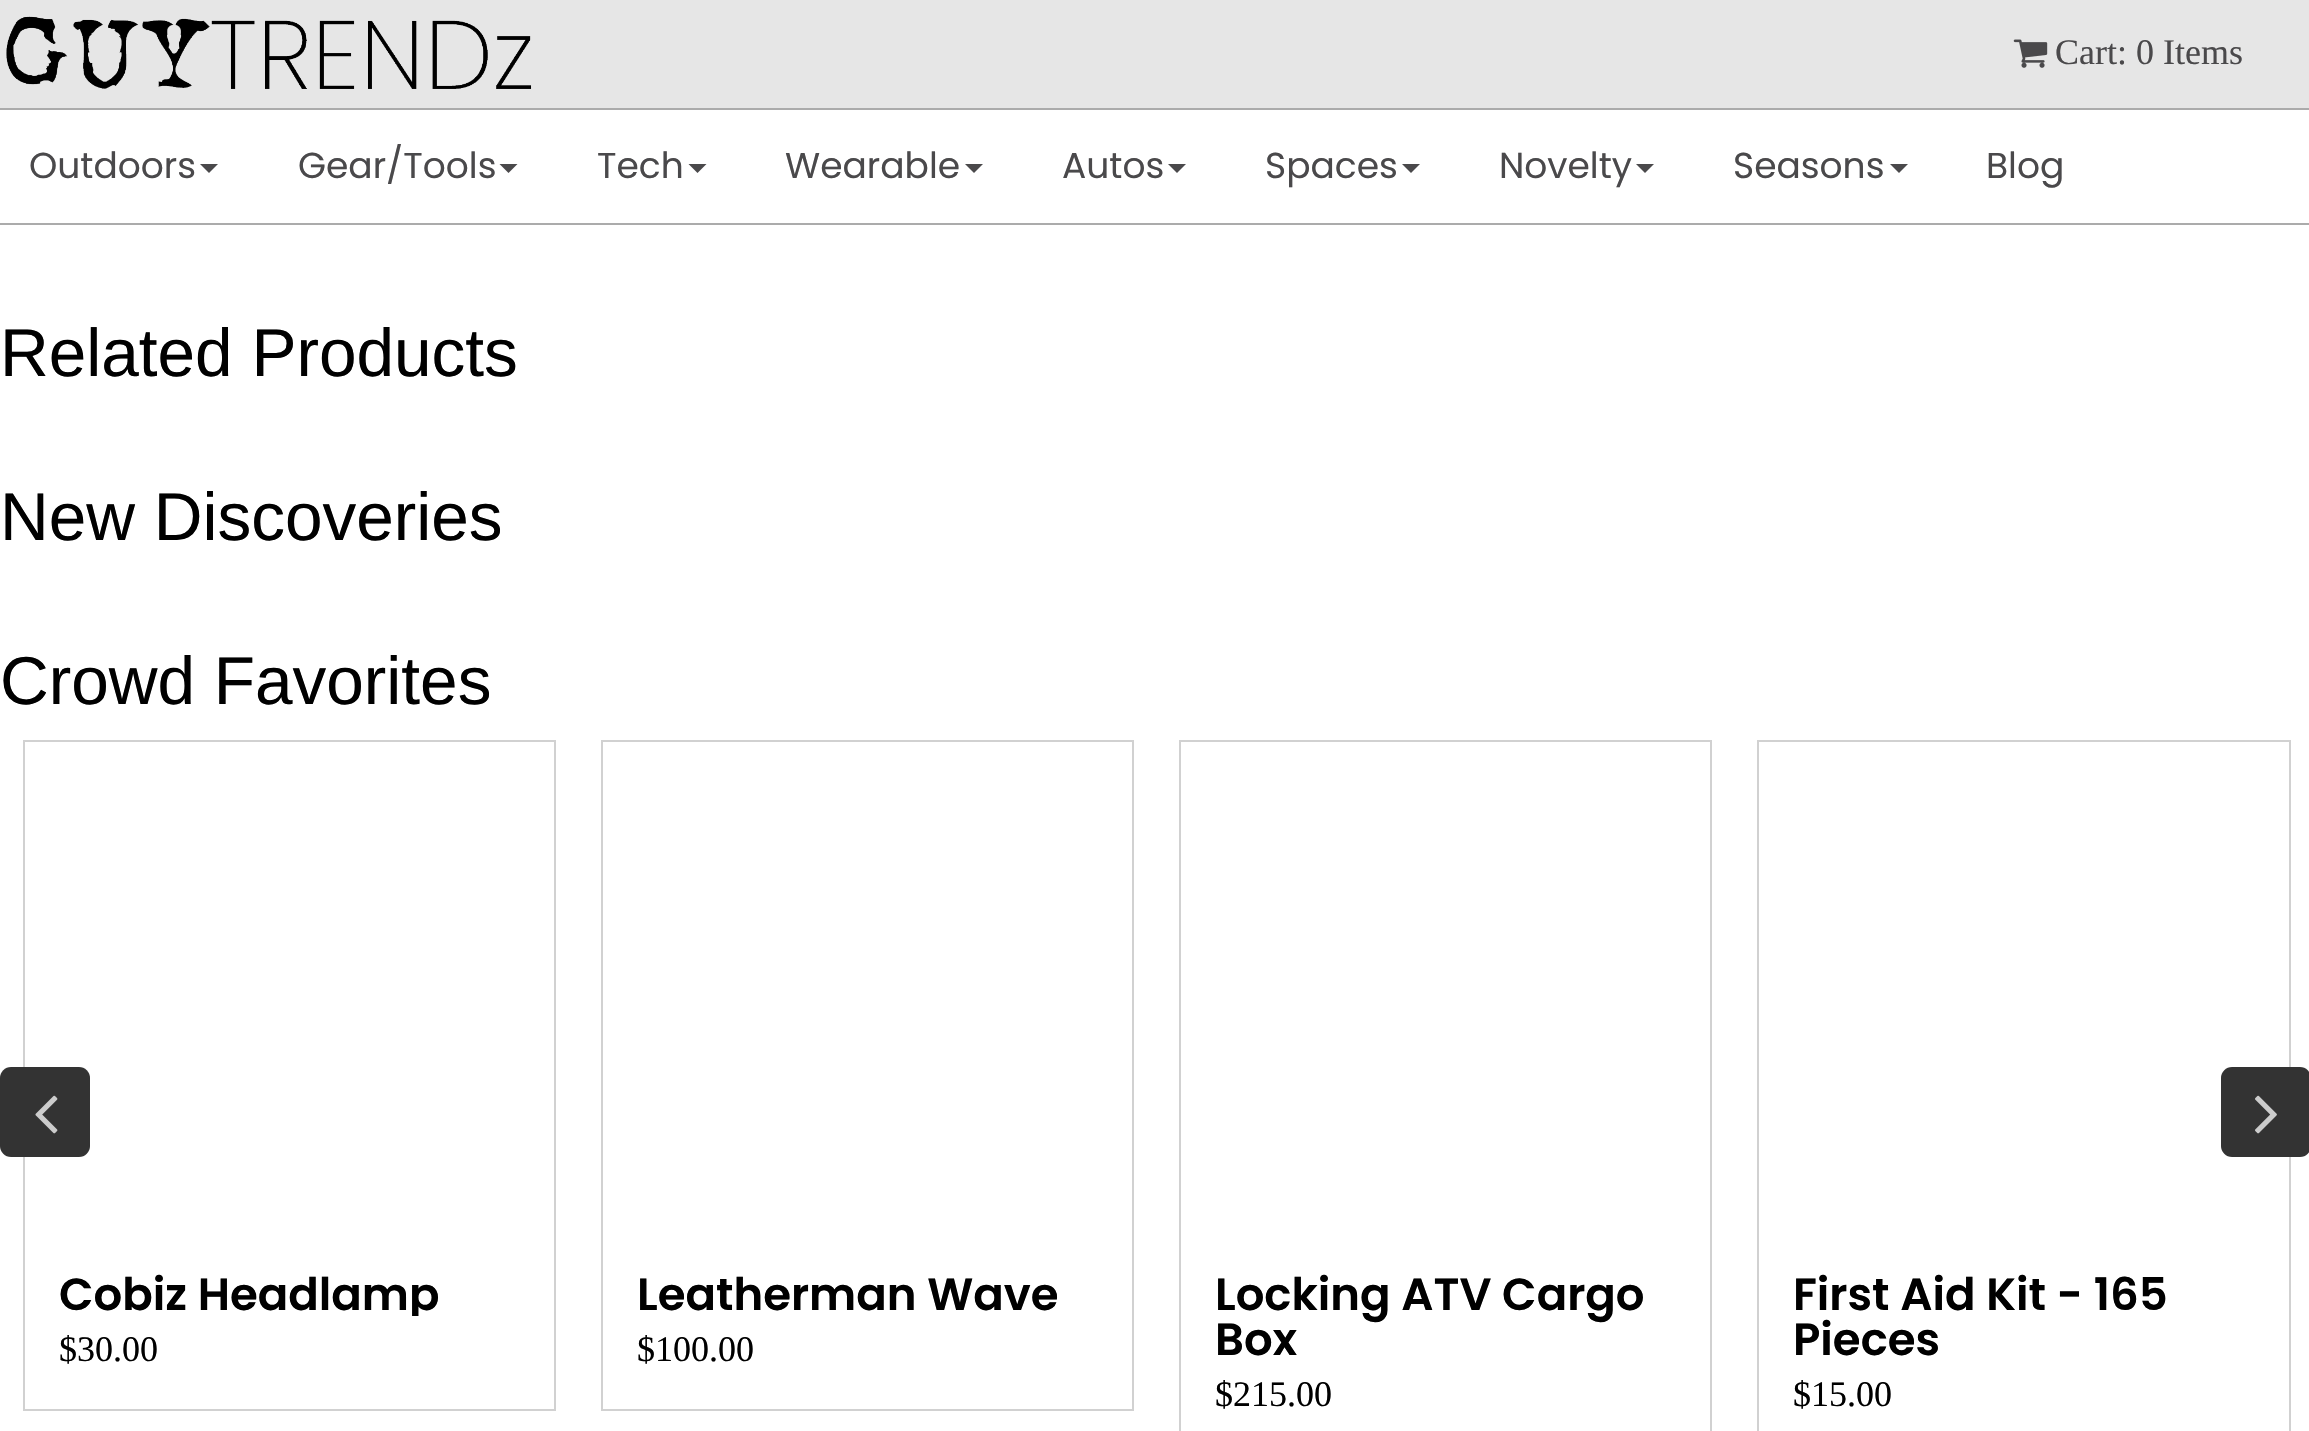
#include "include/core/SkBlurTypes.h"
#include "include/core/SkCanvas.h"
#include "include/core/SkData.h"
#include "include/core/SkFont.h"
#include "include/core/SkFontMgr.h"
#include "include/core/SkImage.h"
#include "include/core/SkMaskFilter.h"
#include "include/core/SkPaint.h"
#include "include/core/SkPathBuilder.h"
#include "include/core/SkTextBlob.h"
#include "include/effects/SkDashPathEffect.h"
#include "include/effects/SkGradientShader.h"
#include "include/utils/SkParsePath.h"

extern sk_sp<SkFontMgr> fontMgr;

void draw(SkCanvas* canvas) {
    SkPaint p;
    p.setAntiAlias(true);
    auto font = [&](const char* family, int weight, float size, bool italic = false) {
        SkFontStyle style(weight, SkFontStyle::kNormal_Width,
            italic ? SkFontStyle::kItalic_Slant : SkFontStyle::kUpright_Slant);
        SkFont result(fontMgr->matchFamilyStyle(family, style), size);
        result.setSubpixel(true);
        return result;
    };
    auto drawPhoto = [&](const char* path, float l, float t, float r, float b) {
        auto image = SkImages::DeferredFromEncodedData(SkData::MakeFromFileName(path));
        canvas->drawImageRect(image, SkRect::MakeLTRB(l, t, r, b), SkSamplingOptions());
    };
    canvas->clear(0xFFFFFFFF);
    p.setColor(0xFFE6E6E6);
    canvas->drawRect(SkRect::MakeLTRB(0, 0, 2309, 108), p);
    drawPhoto("media/1.png", 6, 16, 532, 89);
    drawPhoto("media/2.png", 2013, 39, 2048, 68);
    auto font1 = font("Liberation Serif", 400, 36);
    p.setColor(0xFF4A494B);
    canvas->drawString("Cart: 0 Items", 2055, 64, font1, p);
    p.setColor(0xFFABABAB);
    canvas->drawPath(SkPathBuilder().moveTo(-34, 108).lineTo(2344, 108).lineTo(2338, 110).lineTo(-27, 110).close().detach(), p);
    canvas->drawPath(SkPathBuilder().moveTo(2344, 225).lineTo(-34, 225).lineTo(-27, 223).lineTo(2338, 223).close().detach(), p);
    auto font2 = font("Poppins", 400, 36);
    p.setColor(0xFF4A494B);
    canvas->drawString("Outdoors", 29, 178, font2, p);
    canvas->drawPath(SkPathBuilder().moveTo(200, 164).lineTo(218, 164).lineTo(209, 173).close().detach(), p);
    canvas->drawString("Gear/Tools", 298, 178, font2, p);
    canvas->drawPath(SkPathBuilder().moveTo(499.5f, 164).lineTo(517.5f, 164).lineTo(508.5f, 173).close().detach(), p);
    canvas->drawString("Tech", 597, 178, font2, p);
    canvas->drawPath(SkPathBuilder().moveTo(688.5f, 164).lineTo(706.5f, 164).lineTo(697.5f, 173).close().detach(), p);
    canvas->drawString("Wearable", 785, 178, font2, p);
    canvas->drawPath(SkPathBuilder().moveTo(965, 164).lineTo(983, 164).lineTo(974, 173).close().detach(), p);
    canvas->drawString("Autos", 1062, 178, font2, p);
    canvas->drawPath(SkPathBuilder().moveTo(1168, 164).lineTo(1186, 164).lineTo(1177, 173).close().detach(), p);
    canvas->drawString("Spaces", 1265, 178, font2, p);
    canvas->drawPath(SkPathBuilder().moveTo(1402, 164).lineTo(1420, 164).lineTo(1411, 173).close().detach(), p);
    canvas->drawString("Novelty", 1499, 178, font2, p);
    canvas->drawPath(SkPathBuilder().moveTo(1636, 164).lineTo(1654, 164).lineTo(1645, 173).close().detach(), p);
    canvas->drawString("Seasons", 1733, 178, font2, p);
    canvas->drawPath(SkPathBuilder().moveTo(1890, 164).lineTo(1908, 164).lineTo(1899, 173).close().detach(), p);
    canvas->drawString("Blog", 1986, 178, font2, p);
    auto font3 = font("Liberation Sans", 400, 67.5f);
    p.setColor(0xFF000000);
    {
        const struct { const char* s; float x, y; } items[] = {
            {"Related Products", 0, 376},
            {"New Discoveries", 0, 540},
            {"Crowd Favorites", 0, 704},
        };
        for (auto [s, x, y] : items) {
            canvas->drawString(s, x, y, font3, p);
        }
    }
    p.setStyle(SkPaint::kStroke_Style);
    p.setStrokeWidth(2);
    p.setColor(0xFFD1D1D1);
    canvas->drawRect(SkRect::MakeLTRB(24, 741, 555, 1410), p);
    p.setStyle(SkPaint::kFill_Style);
    p.setColor(0xFF333333);
    canvas->drawRoundRect(SkRect::MakeLTRB(0, 1067, 90, 1157), 11, 11, p);
    drawPhoto("media/3.png", 35, 1095, 58, 1134);
    p.setStyle(SkPaint::kStroke_Style);
    p.setColor(0xFFD1D1D1);
    canvas->drawRect(SkRect::MakeLTRB(1758, 741, 2290, 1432), p);
    p.setStyle(SkPaint::kFill_Style);
    p.setColor(0xFF333333);
    canvas->drawRoundRect(SkRect::MakeLTRB(2221, 1067, 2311, 1157), 11, 11, p);
    drawPhoto("media/4.png", 2255, 1095, 2277, 1134);
    canvas->save();
    canvas->clipRect(SkRect::MakeLTRB(59, 1271, 520, 1316));
    auto font4 = font("Poppins", 600, 45);
    p.setColor(0xFF000000);
    canvas->drawString("Cobiz Headlamp", 59, 1310, font4, p);
    canvas->restore();
    canvas->drawString("$30.00", 59, 1361, font1, p);
    p.setStyle(SkPaint::kStroke_Style);
    p.setColor(0xFFD1D1D1);
    canvas->drawRect(SkRect::MakeLTRB(602, 741, 1133, 1410), p);
    p.setStyle(SkPaint::kFill_Style);
    p.setColor(0xFF000000);
    canvas->drawString("Leatherman Wave", 637, 1310, font4, p);
    canvas->drawString("$100.00", 637, 1361, font1, p);
    p.setStyle(SkPaint::kStroke_Style);
    p.setColor(0xFFD1D1D1);
    canvas->drawRect(SkRect::MakeLTRB(1180, 741, 1711, 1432), p);
    p.setStyle(SkPaint::kFill_Style);
    p.setColor(0xFF000000);
    canvas->drawString("Locking ATV Cargo", 1215, 1310, font4, p);
    canvas->drawString("Box", 1215, 1355, font4, p);
    canvas->drawString("$215.00", 1215, 1406, font1, p);
    canvas->drawString("First Aid Kit - 165", 1793, 1310, font4, p);
    canvas->drawString("Pieces", 1793, 1355, font4, p);
    canvas->drawString("$15.00", 1793, 1406, font1, p);
}
